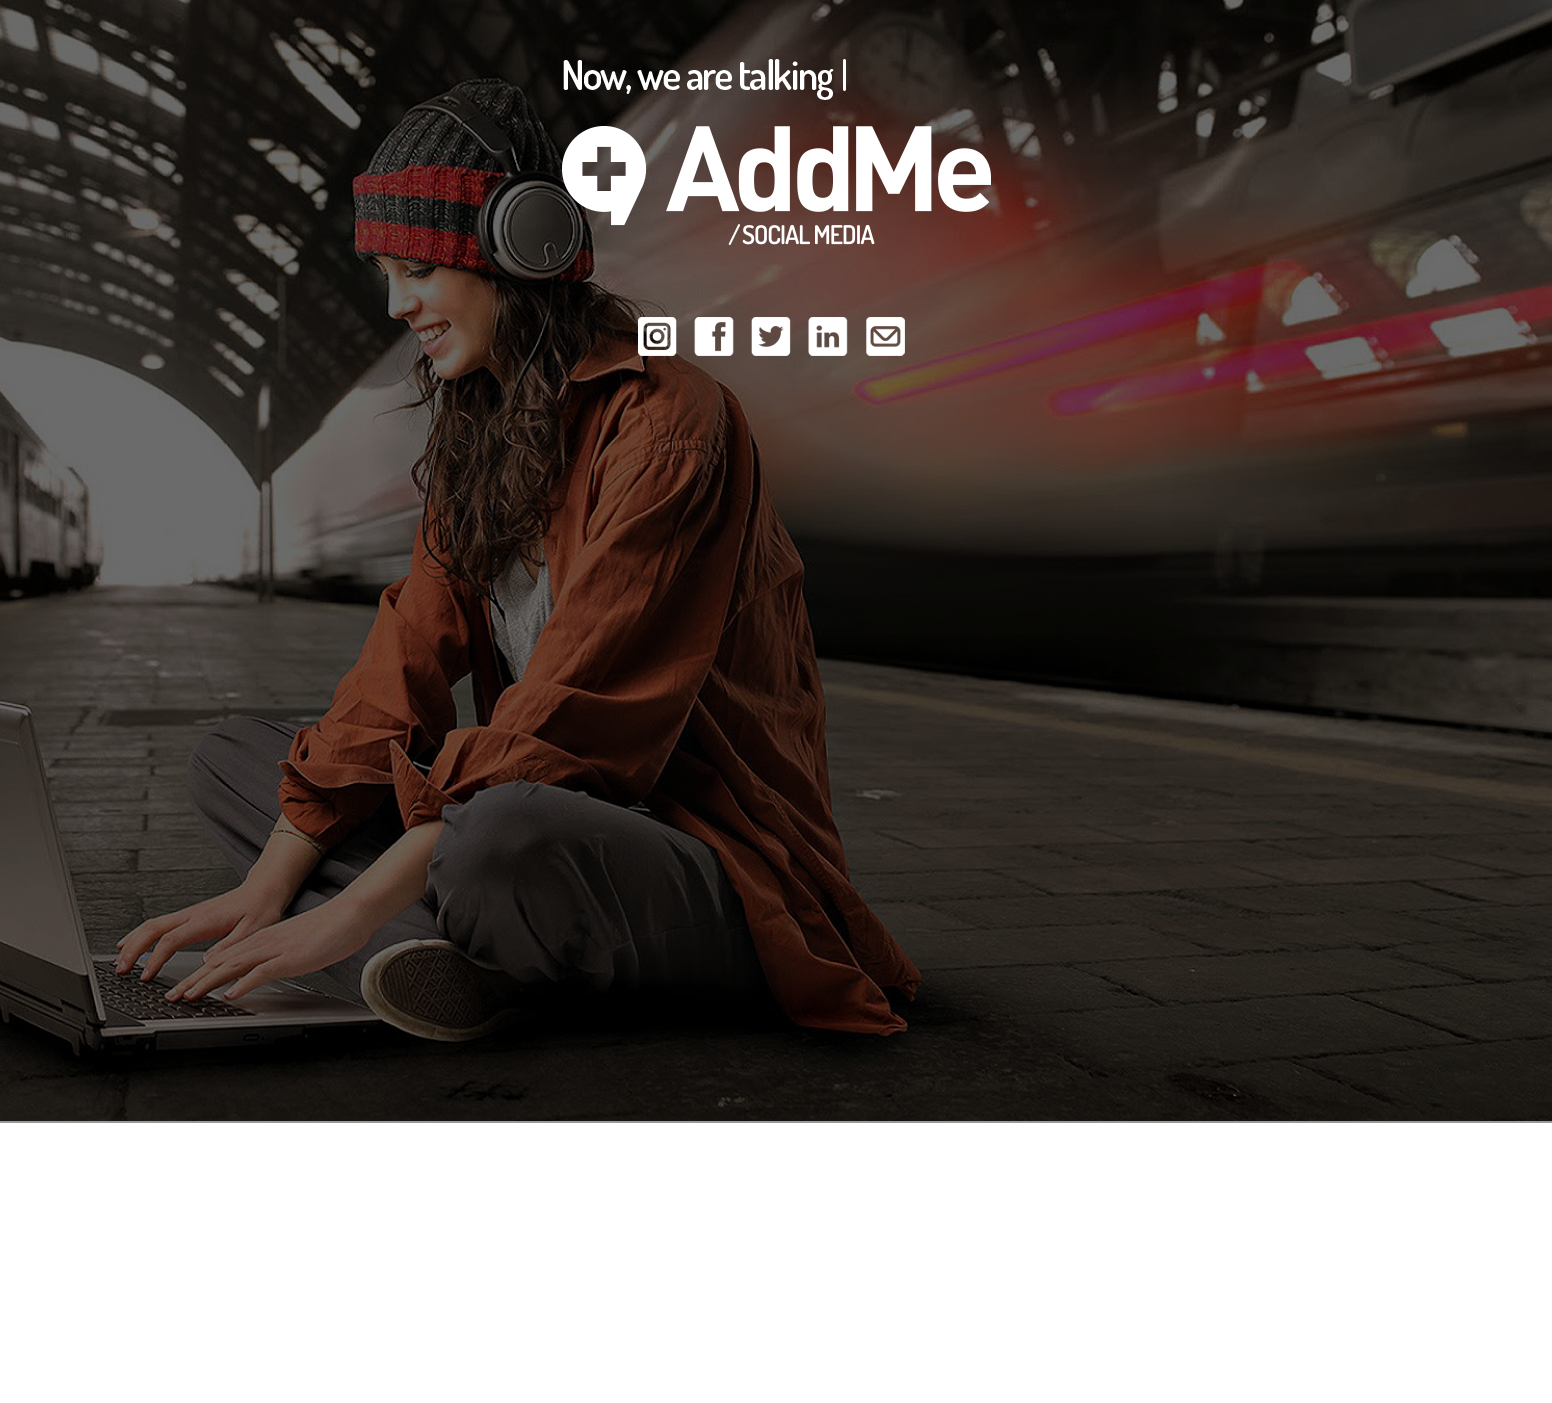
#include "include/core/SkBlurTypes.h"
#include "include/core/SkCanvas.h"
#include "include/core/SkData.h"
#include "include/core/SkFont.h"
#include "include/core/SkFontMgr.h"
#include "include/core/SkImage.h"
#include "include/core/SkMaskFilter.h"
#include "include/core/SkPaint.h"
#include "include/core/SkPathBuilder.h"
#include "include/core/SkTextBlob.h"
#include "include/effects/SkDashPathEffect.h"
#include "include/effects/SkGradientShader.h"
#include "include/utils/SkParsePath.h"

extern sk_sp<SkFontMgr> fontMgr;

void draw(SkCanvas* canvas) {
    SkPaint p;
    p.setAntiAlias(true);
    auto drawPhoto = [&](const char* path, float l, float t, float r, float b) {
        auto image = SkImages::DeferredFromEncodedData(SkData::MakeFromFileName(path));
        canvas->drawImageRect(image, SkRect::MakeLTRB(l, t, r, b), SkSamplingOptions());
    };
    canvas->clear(0xFFFFFFFF);
    drawPhoto("media/1.png", 0, 0, 1552, 1121);
    drawPhoto("media/2.png", 562, 59, 991, 356);
    p.setColor(0xFF999999);
    canvas->drawRect(SkRect::MakeLTRB(0, 1121, 1552, 1123), p);
}
